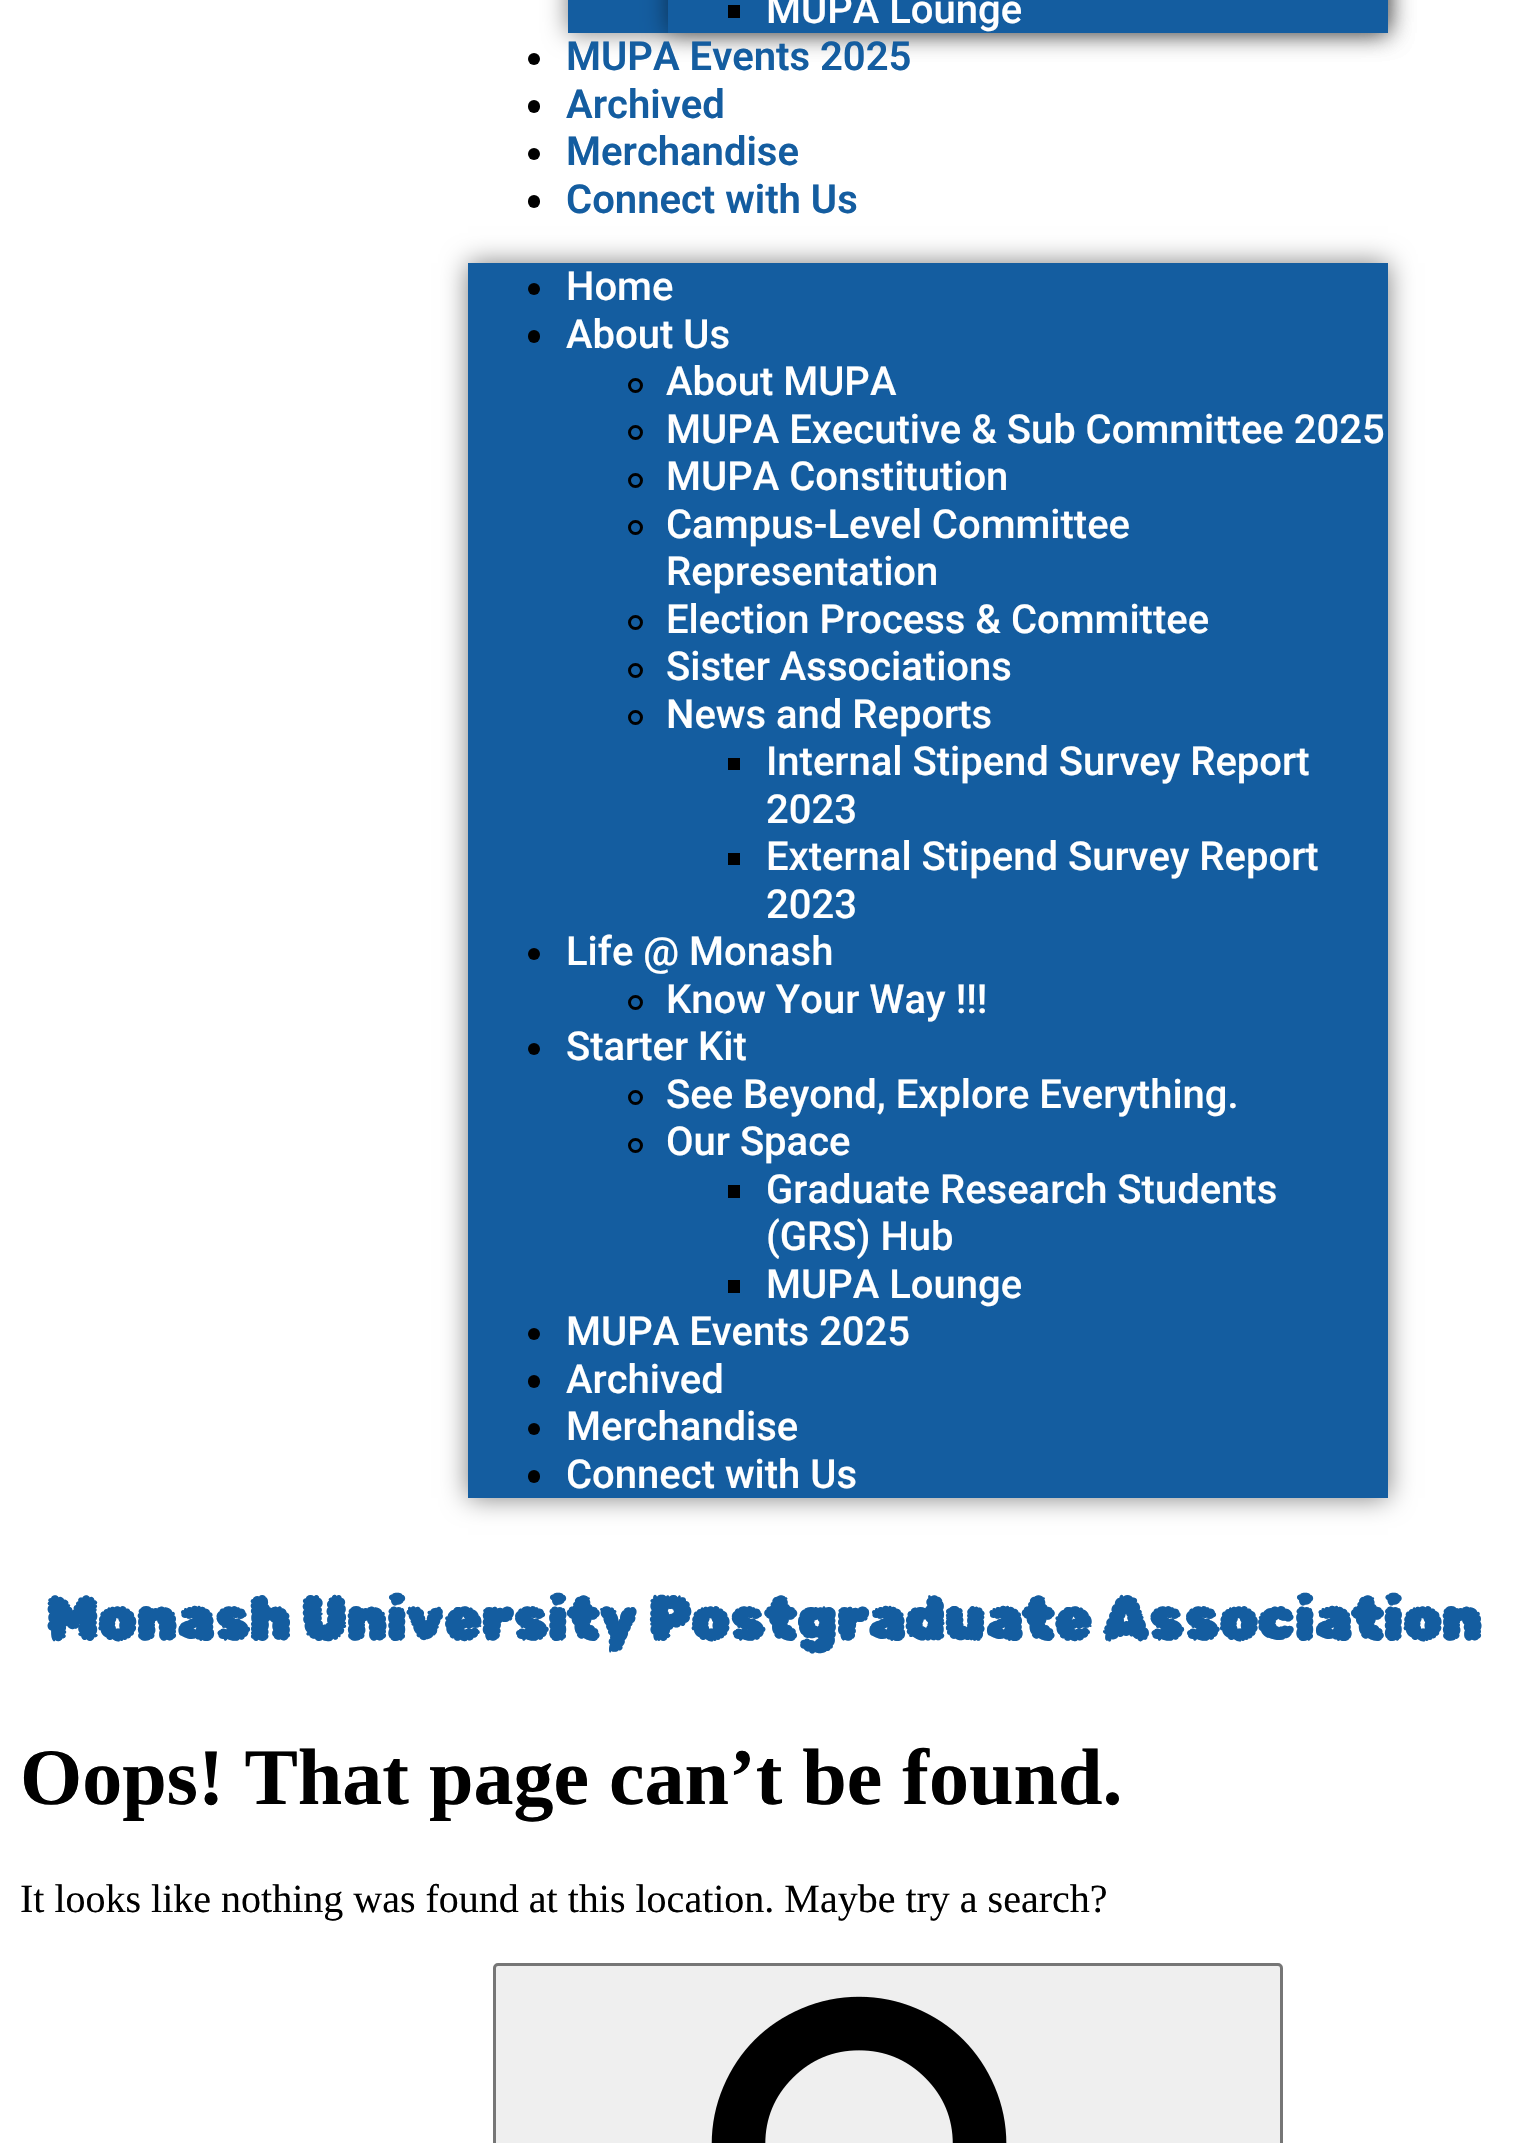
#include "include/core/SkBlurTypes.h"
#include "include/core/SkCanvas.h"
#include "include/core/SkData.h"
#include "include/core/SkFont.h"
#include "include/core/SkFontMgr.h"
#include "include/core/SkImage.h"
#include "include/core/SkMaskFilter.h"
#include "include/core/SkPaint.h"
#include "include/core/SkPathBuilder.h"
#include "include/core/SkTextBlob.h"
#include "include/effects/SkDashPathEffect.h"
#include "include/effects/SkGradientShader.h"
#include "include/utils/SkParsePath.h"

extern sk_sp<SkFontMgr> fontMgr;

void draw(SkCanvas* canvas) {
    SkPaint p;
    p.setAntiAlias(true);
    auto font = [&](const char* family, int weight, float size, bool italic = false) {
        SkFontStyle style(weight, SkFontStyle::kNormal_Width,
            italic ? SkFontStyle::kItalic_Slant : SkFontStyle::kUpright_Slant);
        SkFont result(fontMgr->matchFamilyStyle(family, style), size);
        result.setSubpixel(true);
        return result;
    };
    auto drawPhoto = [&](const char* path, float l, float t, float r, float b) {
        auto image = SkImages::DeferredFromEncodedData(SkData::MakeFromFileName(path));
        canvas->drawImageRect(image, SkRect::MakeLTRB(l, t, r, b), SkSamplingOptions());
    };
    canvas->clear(0xFFFFFFFF);
    p.setColor(0x80000000);
    p.setMaskFilter(SkMaskFilter::MakeBlur(kNormal_SkBlurStyle, 12.5f));
    canvas->drawRect(SkRect::MakeLTRB(568, -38, 1388, 33), p);
    p.setMaskFilter(nullptr);
    p.setColor(0xFF145DA0);
    canvas->drawRect(SkRect::MakeLTRB(568, 0, 668, 33), p);
    p.setColor(0x80000000);
    p.setMaskFilter(SkMaskFilter::MakeBlur(kNormal_SkBlurStyle, 12.5f));
    canvas->drawRect(SkRect::MakeLTRB(668, -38, 1388, 33), p);
    p.setMaskFilter(nullptr);
    p.setColor(0xFF145DA0);
    canvas->drawRect(SkRect::MakeLTRB(668, 0, 1388, 33), p);
    p.setColor(0xFF000000);
    canvas->drawRect(SkRect::MakeLTRB(728, 5, 740, 18), p);
    auto font1 = font("Roboto", 500, 40);
    p.setColor(0xFFFFFFFF);
    canvas->drawString("MUPA Lounge", 766, 23, font1, p);
    p.setColor(0xFF000000);
    canvas->drawCircle(534, 59, 6, p);
    auto font2 = font("Roboto", 600, 40);
    p.setColor(0xFF145DA0);
    canvas->drawString("MUPA Events 2025", 566, 70, font2, p);
    p.setColor(0xFF000000);
    canvas->drawRoundRect(SkRect::MakeLTRB(528, 100, 540, 113), 6, 6, p);
    p.setColor(0xFF145DA0);
    canvas->drawString("Archived", 566, 118, font2, p);
    p.setColor(0xFF000000);
    canvas->drawCircle(534, 154, 6, p);
    p.setColor(0xFF145DA0);
    canvas->drawString("Merchandise", 566, 165, font2, p);
    p.setColor(0xFF000000);
    canvas->drawRoundRect(SkRect::MakeLTRB(528, 195, 540, 208), 6, 6, p);
    p.setColor(0xFF145DA0);
    canvas->drawString("Connect with Us", 566, 213, font2, p);
    p.setColor(0x80000000);
    p.setMaskFilter(SkMaskFilter::MakeBlur(kNormal_SkBlurStyle, 12.5f));
    canvas->drawRect(SkRect::MakeLTRB(468, 263, 1388, 1498), p);
    p.setMaskFilter(nullptr);
    p.setColor(0xFF145DA0);
    canvas->drawRect(SkRect::MakeLTRB(468, 263, 1388, 1498), p);
    p.setColor(0xFF000000);
    canvas->drawCircle(534, 289, 6, p);
    p.setColor(0xFFFFFFFF);
    canvas->drawString("Home", 566, 300, font1, p);
    p.setColor(0xFF000000);
    canvas->drawRoundRect(SkRect::MakeLTRB(528, 330, 540, 343), 6, 6, p);
    p.setColor(0xFFFFFFFF);
    canvas->drawString("About Us", 566, 348, font1, p);
    p.setStyle(SkPaint::kStroke_Style);
    p.setStrokeWidth(3);
    p.setColor(0xFF000000);
    canvas->drawCircle(635.5f, 385.5f, 6, p);
    p.setStyle(SkPaint::kFill_Style);
    p.setColor(0xFFFFFFFF);
    canvas->drawString("About MUPA", 666, 395, font1, p);
    p.setStyle(SkPaint::kStroke_Style);
    p.setColor(0xFF000000);
    canvas->drawCircle(635.5f, 432.5f, 6, p);
    p.setStyle(SkPaint::kFill_Style);
    p.setColor(0xFFFFFFFF);
    canvas->drawString("MUPA Executive & Sub Committee 2025", 666, 443, font1, p);
    p.setStyle(SkPaint::kStroke_Style);
    p.setColor(0xFF000000);
    canvas->drawCircle(635.5f, 480.5f, 6, p);
    p.setStyle(SkPaint::kFill_Style);
    p.setColor(0xFFFFFFFF);
    canvas->drawString("MUPA Constitution", 666, 490, font1, p);
    p.setStyle(SkPaint::kStroke_Style);
    p.setColor(0xFF000000);
    canvas->drawCircle(635.5f, 527.5f, 6, p);
    p.setStyle(SkPaint::kFill_Style);
    p.setColor(0xFFFFFFFF);
    canvas->drawString("Campus-Level Committee", 666, 538, font1, p);
    canvas->drawString("Representation", 666, 585, font1, p);
    p.setStyle(SkPaint::kStroke_Style);
    p.setColor(0xFF000000);
    canvas->drawCircle(635.5f, 622.5f, 6, p);
    p.setStyle(SkPaint::kFill_Style);
    p.setColor(0xFFFFFFFF);
    canvas->drawString("Election Process & Committee", 666, 633, font1, p);
    p.setStyle(SkPaint::kStroke_Style);
    p.setColor(0xFF000000);
    canvas->drawCircle(635.5f, 670.5f, 6, p);
    p.setStyle(SkPaint::kFill_Style);
    p.setColor(0xFFFFFFFF);
    canvas->drawString("Sister Associations", 666, 680, font1, p);
    p.setStyle(SkPaint::kStroke_Style);
    p.setColor(0xFF000000);
    canvas->drawCircle(635.5f, 717.5f, 6, p);
    p.setStyle(SkPaint::kFill_Style);
    p.setColor(0xFFFFFFFF);
    canvas->drawString("News and Reports", 666, 728, font1, p);
    p.setColor(0xFF000000);
    canvas->drawRect(SkRect::MakeLTRB(728, 758, 740, 770), p);
    p.setColor(0xFFFFFFFF);
    canvas->drawString("Internal Stipend Survey Report", 766, 775, font1, p);
    canvas->drawString("2023", 766, 823, font1, p);
    p.setColor(0xFF000000);
    canvas->drawRect(SkRect::MakeLTRB(728, 853, 740, 865), p);
    p.setColor(0xFFFFFFFF);
    canvas->drawString("External Stipend Survey Report", 766, 870, font1, p);
    canvas->drawString("2023", 766, 918, font1, p);
    p.setColor(0xFF000000);
    canvas->drawCircle(534, 954, 6, p);
    p.setColor(0xFFFFFFFF);
    canvas->drawString("Life @ Monash", 566, 965, font1, p);
    p.setStyle(SkPaint::kStroke_Style);
    p.setColor(0xFF000000);
    canvas->drawCircle(635.5f, 1002.5f, 6, p);
    p.setStyle(SkPaint::kFill_Style);
    p.setColor(0xFFFFFFFF);
    canvas->drawString("Know Your Way !!!", 666, 1013, font1, p);
    p.setColor(0xFF000000);
    canvas->drawCircle(534, 1049, 6, p);
    p.setColor(0xFFFFFFFF);
    canvas->drawString("Starter Kit", 566, 1060, font1, p);
    p.setStyle(SkPaint::kStroke_Style);
    p.setColor(0xFF000000);
    canvas->drawCircle(635.5f, 1097.5f, 6, p);
    p.setStyle(SkPaint::kFill_Style);
    p.setColor(0xFFFFFFFF);
    canvas->drawString("See Beyond, Explore Everything.", 666, 1108, font1, p);
    p.setStyle(SkPaint::kStroke_Style);
    p.setColor(0xFF000000);
    canvas->drawCircle(635.5f, 1145.5f, 6, p);
    p.setStyle(SkPaint::kFill_Style);
    p.setColor(0xFFFFFFFF);
    canvas->drawString("Our Space", 666, 1155, font1, p);
    p.setColor(0xFF000000);
    canvas->drawRect(SkRect::MakeLTRB(728, 1185, 740, 1198), p);
    p.setColor(0xFFFFFFFF);
    canvas->drawString("Graduate Research Students", 766, 1203, font1, p);
    canvas->drawString("(GRS) Hub", 766, 1250, font1, p);
    p.setColor(0xFF000000);
    canvas->drawRect(SkRect::MakeLTRB(728, 1280, 740, 1293), p);
    p.setColor(0xFFFFFFFF);
    canvas->drawString("MUPA Lounge", 766, 1298, font1, p);
    p.setColor(0xFF000000);
    canvas->drawCircle(534, 1334, 6, p);
    p.setColor(0xFFFFFFFF);
    canvas->drawString("MUPA Events 2025", 566, 1345, font1, p);
    p.setColor(0xFF000000);
    canvas->drawRoundRect(SkRect::MakeLTRB(528, 1375, 540, 1388), 6, 6, p);
    p.setColor(0xFFFFFFFF);
    canvas->drawString("Archived", 566, 1393, font1, p);
    p.setColor(0xFF000000);
    canvas->drawCircle(534, 1429, 6, p);
    p.setColor(0xFFFFFFFF);
    canvas->drawString("Merchandise", 566, 1440, font1, p);
    p.setColor(0xFF000000);
    canvas->drawRoundRect(SkRect::MakeLTRB(528, 1470, 540, 1483), 6, 6, p);
    p.setColor(0xFFFFFFFF);
    canvas->drawString("Connect with Us", 566, 1488, font1, p);
    auto font3 = font("Rubik Bubbles", 700, 60);
    p.setColor(0xFF145DA0);
    canvas->drawString("Monash University Postgraduate Association", 46, 1640, font3, p);
    auto font4 = font("Liberation Serif", 700, 80);
    p.setColor(0xFF000000);
    canvas->drawString("Oops! That page can’t be found.", 20, 1804, font4, p);
    auto font5 = font("Liberation Serif", 400, 40);
    canvas->drawString("It looks like nothing was found at this location. Maybe try a search?", 20, 1912, font5, p);
    p.setColor(0xFFEFEFEF);
    canvas->drawRoundRect(SkRect::MakeLTRB(494.5f, 1964.5f, 1281.5f, 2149.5f), 3.5f, 3.5f, p);
    p.setStyle(SkPaint::kStroke_Style);
    p.setColor(0xFF767676);
    canvas->drawRoundRect(SkRect::MakeLTRB(494.5f, 1964.5f, 1281.5f, 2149.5f), 3.5f, 3.5f, p);
    drawPhoto("media/1.png", 711, 1996, 1007, 2143);
}
